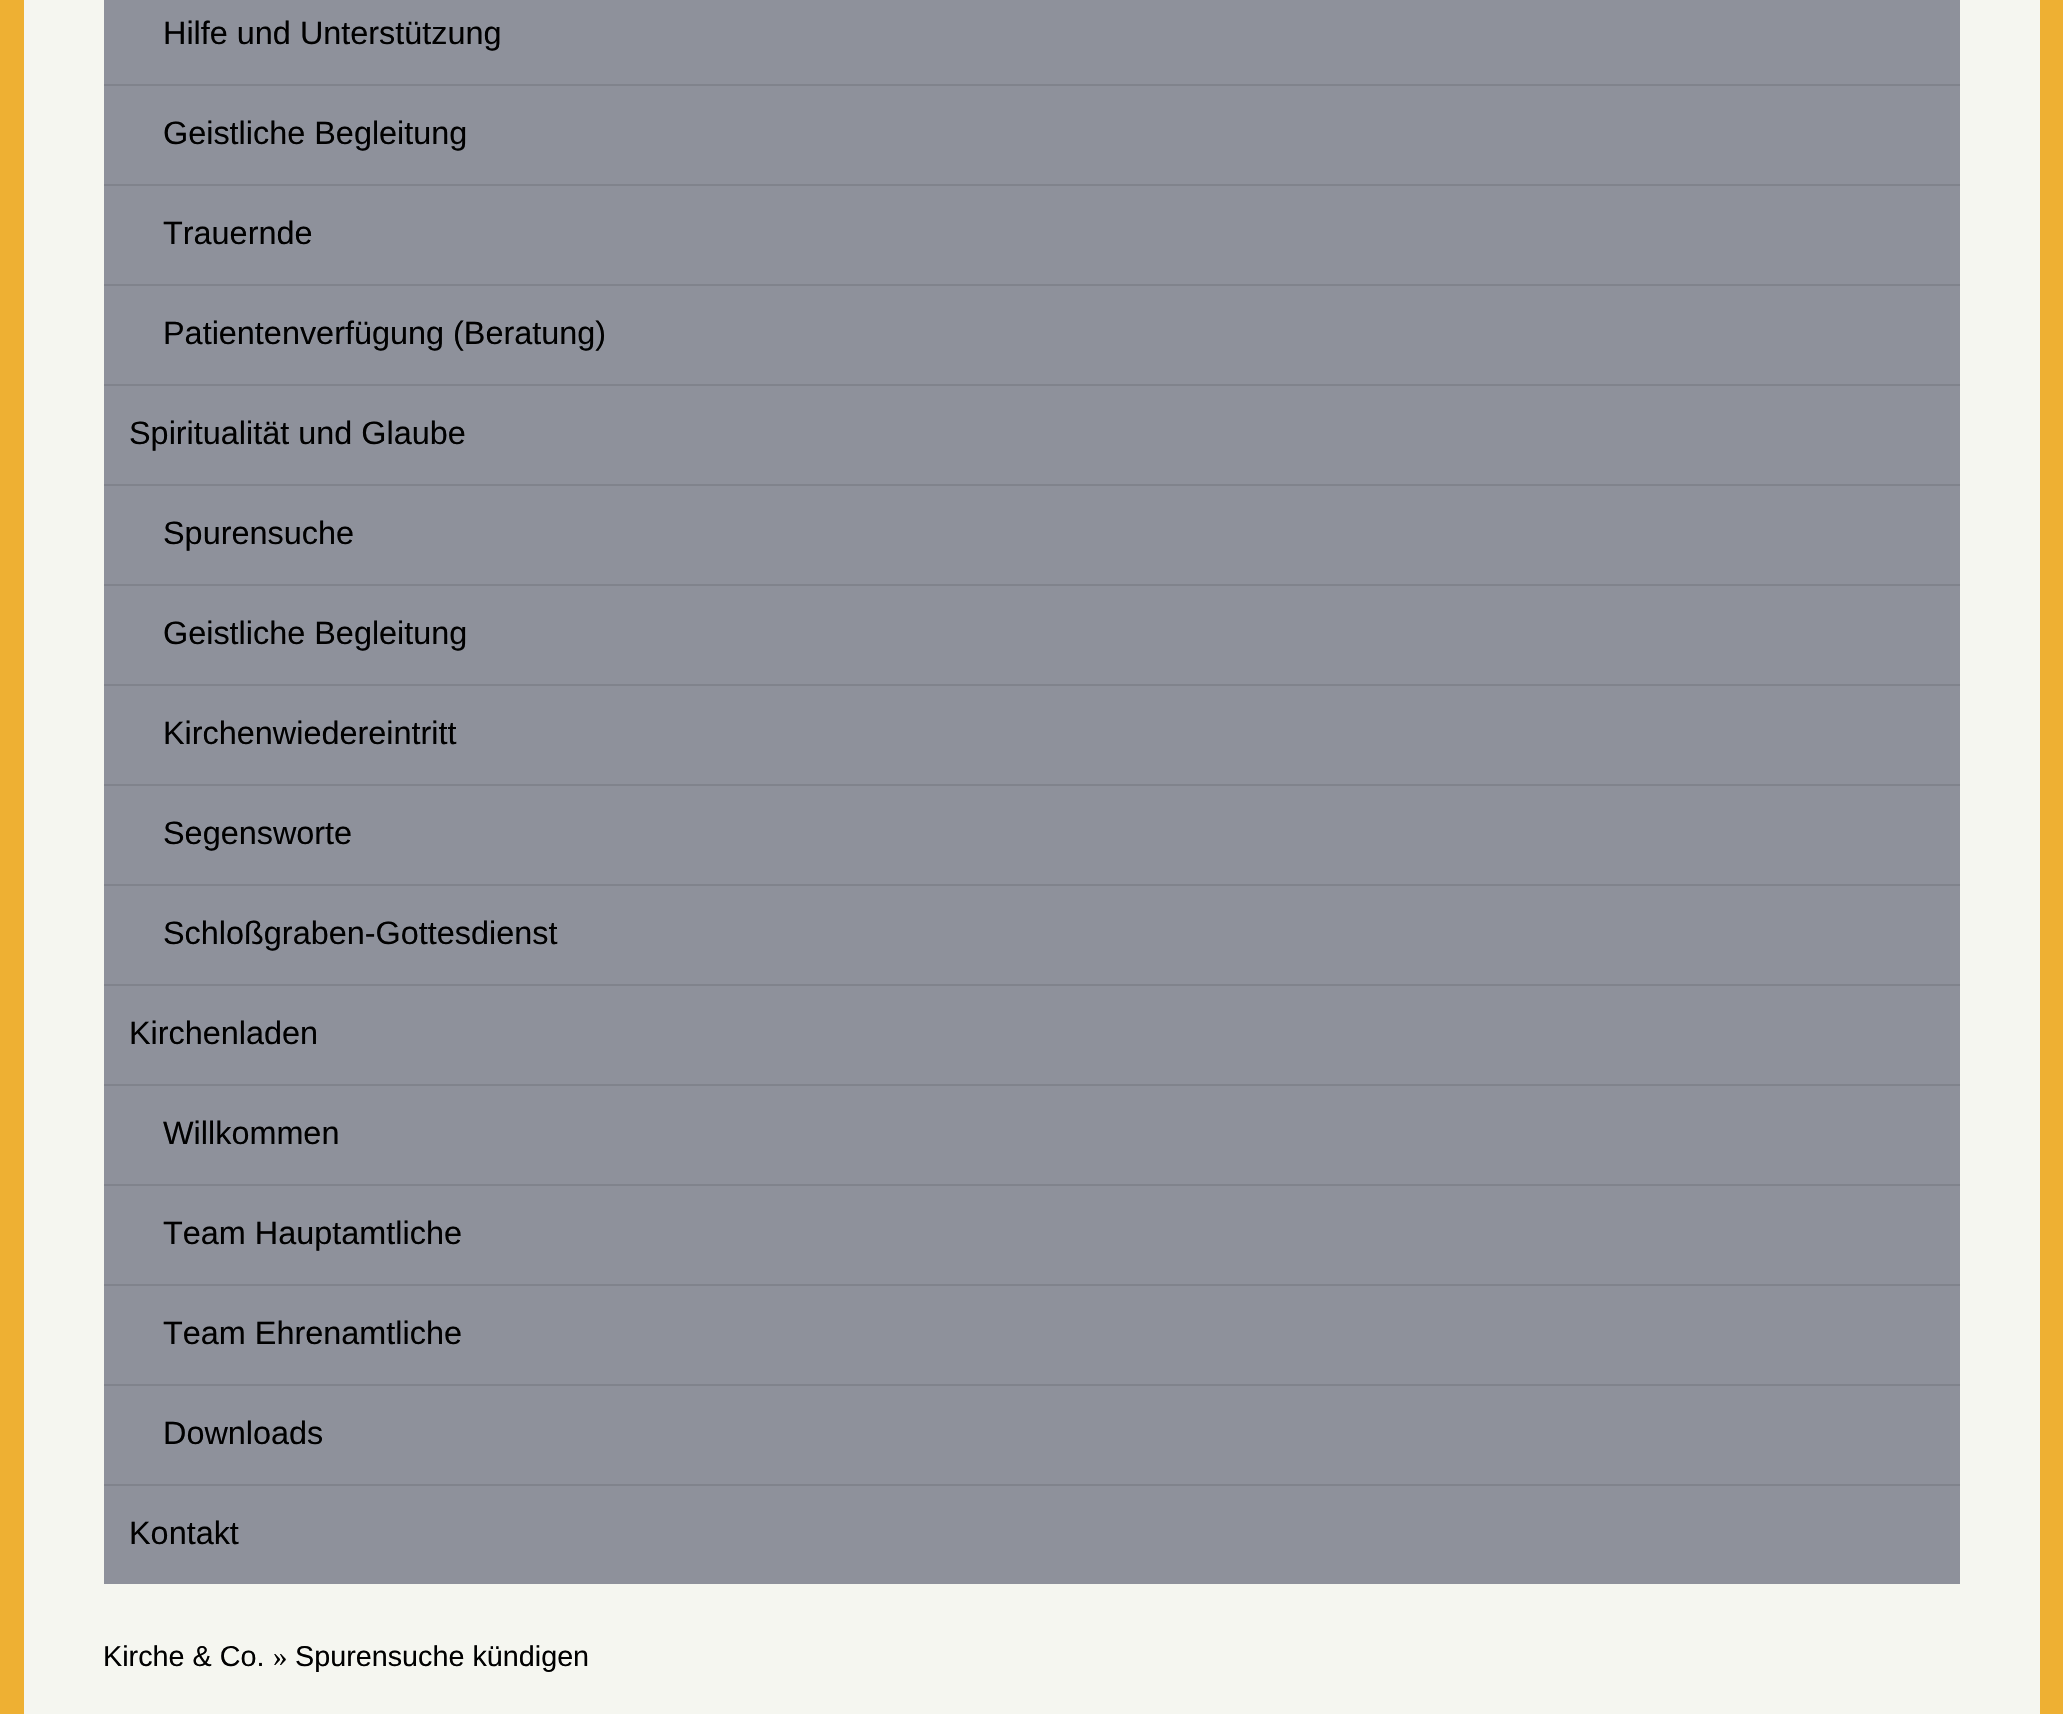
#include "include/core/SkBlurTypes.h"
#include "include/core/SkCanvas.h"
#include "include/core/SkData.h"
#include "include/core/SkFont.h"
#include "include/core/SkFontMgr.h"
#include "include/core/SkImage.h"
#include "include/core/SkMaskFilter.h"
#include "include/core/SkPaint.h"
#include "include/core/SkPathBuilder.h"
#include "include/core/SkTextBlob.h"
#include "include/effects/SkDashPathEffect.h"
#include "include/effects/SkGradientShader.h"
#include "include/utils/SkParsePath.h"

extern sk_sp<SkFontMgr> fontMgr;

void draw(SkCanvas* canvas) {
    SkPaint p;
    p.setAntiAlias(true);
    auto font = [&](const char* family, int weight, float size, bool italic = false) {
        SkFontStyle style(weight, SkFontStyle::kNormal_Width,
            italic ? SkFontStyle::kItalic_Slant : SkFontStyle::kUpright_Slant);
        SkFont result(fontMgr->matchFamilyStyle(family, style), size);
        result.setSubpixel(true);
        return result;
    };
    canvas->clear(0xFFEEB033);
    {
        const struct { float l, t, r, b; SkColor color; } items[] = {
            {24, 0, 2040, 1714, 0xFFF5F6F0},
            {104, 386, 1960, 1584, 0xFF8E919B},
            {104, 0, 1960, 84, 0xFF8E919B},
        };
        for (auto [l, t, r, b, color] : items) {
            p.setColor(color);
            canvas->drawRect(SkRect::MakeLTRB(l, t, r, b), p);
        }
    }
    auto font1 = font("Liberation Sans", 400, 32.4f);
    p.setColor(0xFF000000);
    canvas->drawString("Hilfe und Unterstützung", 163, 44, font1, p);
    p.setColor(0xFF8E919B);
    canvas->drawRect(SkRect::MakeLTRB(104, 86, 1960, 184), p);
    p.setColor(0xFF80838C);
    canvas->drawRect(SkRect::MakeLTRB(104, 84, 1960, 86), p);
    p.setColor(0xFF000000);
    canvas->drawString("Geistliche Begleitung", 163, 144, font1, p);
    p.setColor(0xFF8E919B);
    canvas->drawRect(SkRect::MakeLTRB(104, 186, 1960, 284), p);
    p.setColor(0xFF80838C);
    canvas->drawRect(SkRect::MakeLTRB(104, 184, 1960, 186), p);
    p.setColor(0xFF000000);
    canvas->drawString("Trauernde", 163, 244, font1, p);
    p.setColor(0xFF8E919B);
    canvas->drawRect(SkRect::MakeLTRB(104, 286, 1960, 384), p);
    p.setColor(0xFF80838C);
    canvas->drawRect(SkRect::MakeLTRB(104, 284, 1960, 286), p);
    p.setColor(0xFF000000);
    canvas->drawString("Patientenverfügung (Beratung)", 163, 344, font1, p);
    p.setColor(0xFF80838C);
    canvas->drawRect(SkRect::MakeLTRB(104, 384, 1960, 386), p);
    p.setColor(0xFF000000);
    canvas->drawString("Spiritualität und Glaube", 129, 444, font1, p);
    p.setColor(0xFF80838C);
    canvas->drawRect(SkRect::MakeLTRB(104, 484, 1960, 486), p);
    p.setColor(0xFF000000);
    canvas->drawString("Spurensuche", 163, 544, font1, p);
    p.setColor(0xFF80838C);
    canvas->drawRect(SkRect::MakeLTRB(104, 584, 1960, 586), p);
    p.setColor(0xFF000000);
    canvas->drawString("Geistliche Begleitung", 163, 644, font1, p);
    p.setColor(0xFF80838C);
    canvas->drawRect(SkRect::MakeLTRB(104, 684, 1960, 686), p);
    p.setColor(0xFF000000);
    canvas->drawString("Kirchenwiedereintritt", 163, 744, font1, p);
    p.setColor(0xFF80838C);
    canvas->drawRect(SkRect::MakeLTRB(104, 784, 1960, 786), p);
    p.setColor(0xFF000000);
    canvas->drawString("Segensworte", 163, 844, font1, p);
    p.setColor(0xFF80838C);
    canvas->drawRect(SkRect::MakeLTRB(104, 884, 1960, 886), p);
    p.setColor(0xFF000000);
    canvas->drawString("Schloßgraben-Gottesdienst", 163, 944, font1, p);
    p.setColor(0xFF80838C);
    canvas->drawRect(SkRect::MakeLTRB(104, 984, 1960, 986), p);
    p.setColor(0xFF000000);
    canvas->drawString("Kirchenladen", 129, 1044, font1, p);
    p.setColor(0xFF80838C);
    canvas->drawRect(SkRect::MakeLTRB(104, 1084, 1960, 1086), p);
    p.setColor(0xFF000000);
    canvas->drawString("Willkommen", 163, 1144, font1, p);
    p.setColor(0xFF80838C);
    canvas->drawRect(SkRect::MakeLTRB(104, 1184, 1960, 1186), p);
    p.setColor(0xFF000000);
    canvas->drawString("Team Hauptamtliche", 163, 1244, font1, p);
    p.setColor(0xFF80838C);
    canvas->drawRect(SkRect::MakeLTRB(104, 1284, 1960, 1286), p);
    p.setColor(0xFF000000);
    canvas->drawString("Team Ehrenamtliche", 163, 1344, font1, p);
    p.setColor(0xFF80838C);
    canvas->drawRect(SkRect::MakeLTRB(104, 1384, 1960, 1386), p);
    p.setColor(0xFF000000);
    canvas->drawString("Downloads", 163, 1444, font1, p);
    p.setColor(0xFF80838C);
    canvas->drawRect(SkRect::MakeLTRB(104, 1484, 1960, 1486), p);
    p.setColor(0xFF000000);
    canvas->drawString("Kontakt", 129, 1544, font1, p);
    auto font2 = font("Liberation Sans", 400, 28.75f);
    canvas->drawString("Kirche & Co.", 103, 1666, font2, p);
    auto font3 = font("Liberation Serif", 400, 28.75f);
    canvas->drawString("»", 273, 1666, font3, p);
    canvas->drawString("Spurensuche kündigen", 295, 1666, font2, p);
}
